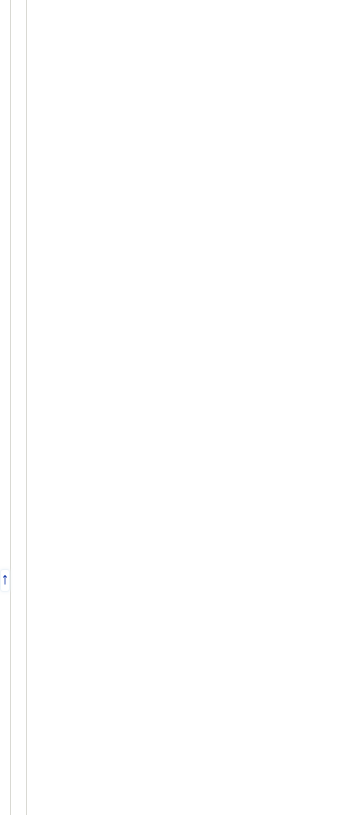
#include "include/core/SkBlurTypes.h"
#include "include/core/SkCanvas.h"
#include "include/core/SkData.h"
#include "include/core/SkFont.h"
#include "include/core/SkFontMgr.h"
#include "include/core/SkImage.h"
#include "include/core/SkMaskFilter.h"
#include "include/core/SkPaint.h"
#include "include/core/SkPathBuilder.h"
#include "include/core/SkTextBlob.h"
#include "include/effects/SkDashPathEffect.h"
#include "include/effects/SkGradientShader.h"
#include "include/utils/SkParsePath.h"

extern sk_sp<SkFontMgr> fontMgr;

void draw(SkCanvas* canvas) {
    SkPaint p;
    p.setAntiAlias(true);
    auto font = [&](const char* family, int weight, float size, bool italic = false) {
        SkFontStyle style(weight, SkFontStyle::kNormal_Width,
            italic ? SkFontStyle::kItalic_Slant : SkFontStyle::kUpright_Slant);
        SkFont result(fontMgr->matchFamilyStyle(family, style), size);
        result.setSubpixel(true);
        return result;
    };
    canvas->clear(0xFFFFFFFF);
    p.setStyle(SkPaint::kStroke_Style);
    p.setStrokeWidth(1);
    p.setColor(0xFFD9D9D3);
    canvas->drawRect(SkRect::MakeLTRB(10.5f, -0.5f, 26.5f, 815.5f), p);
    canvas->save();
    canvas->clipPath(SkPathBuilder(SkPathFillType::kEvenOdd).moveTo(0, 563).lineTo(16, 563).lineTo(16, 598).lineTo(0, 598).close().moveTo(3, 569).lineTo(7, 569).cubicTo(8.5f, 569, 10, 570.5f, 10, 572).lineTo(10, 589).cubicTo(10, 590.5f, 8.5f, 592, 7, 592).lineTo(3, 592).cubicTo(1.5f, 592, 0, 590.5f, 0, 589).lineTo(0, 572).cubicTo(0, 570.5f, 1.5f, 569, 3, 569).close().detach(), true);
    p.setStyle(SkPaint::kFill_Style);
    p.setColor(0xFFEEF4F9);
    p.setMaskFilter(SkMaskFilter::MakeBlur(kNormal_SkBlurStyle, 1.5f));
    canvas->drawRoundRect(SkRect::MakeLTRB(0, 569, 10, 592), 3, 3, p);
    p.setMaskFilter(nullptr);
    canvas->restore();
    p.setStyle(SkPaint::kStroke_Style);
    canvas->drawRoundRect(SkRect::MakeLTRB(0.5f, 569.5f, 9.5f, 591.5f), 2.5f, 2.5f, p);
    auto font1 = font("Liberation Sans", 400, 16);
    p.setStyle(SkPaint::kFill_Style);
    p.setColor(0xFF1237AA);
    canvas->drawString("↑", 1, 584, font1, p);
}
